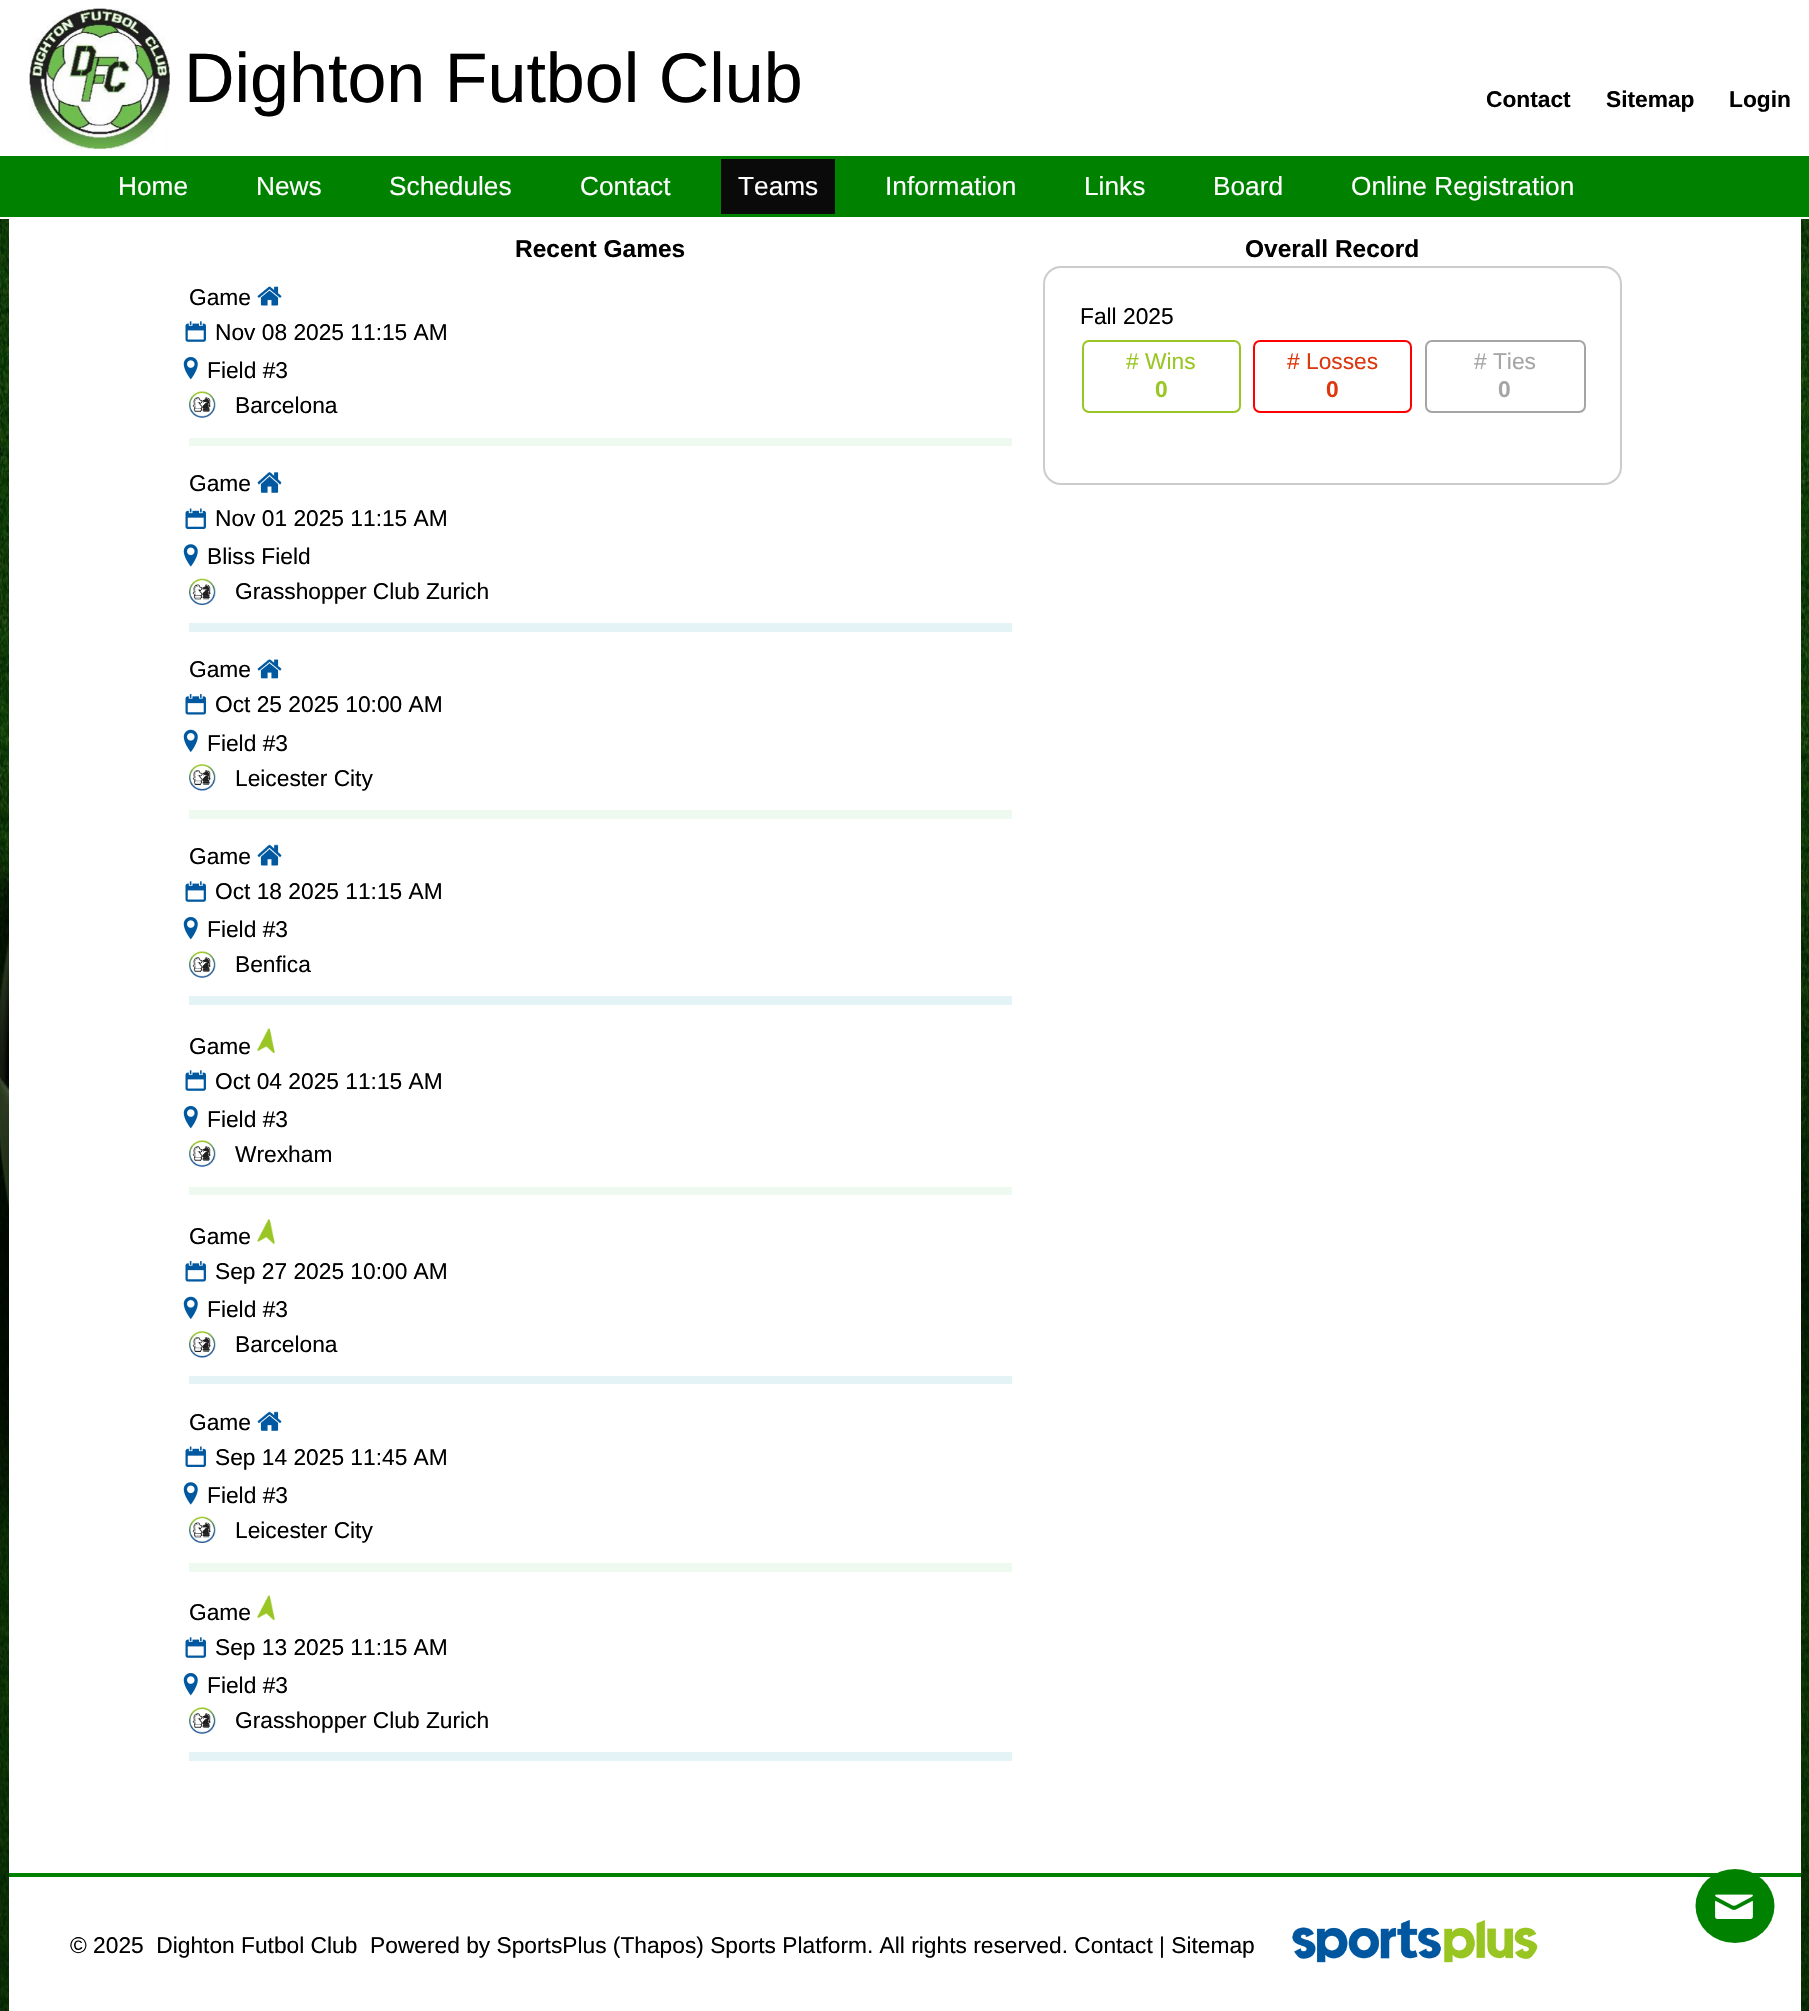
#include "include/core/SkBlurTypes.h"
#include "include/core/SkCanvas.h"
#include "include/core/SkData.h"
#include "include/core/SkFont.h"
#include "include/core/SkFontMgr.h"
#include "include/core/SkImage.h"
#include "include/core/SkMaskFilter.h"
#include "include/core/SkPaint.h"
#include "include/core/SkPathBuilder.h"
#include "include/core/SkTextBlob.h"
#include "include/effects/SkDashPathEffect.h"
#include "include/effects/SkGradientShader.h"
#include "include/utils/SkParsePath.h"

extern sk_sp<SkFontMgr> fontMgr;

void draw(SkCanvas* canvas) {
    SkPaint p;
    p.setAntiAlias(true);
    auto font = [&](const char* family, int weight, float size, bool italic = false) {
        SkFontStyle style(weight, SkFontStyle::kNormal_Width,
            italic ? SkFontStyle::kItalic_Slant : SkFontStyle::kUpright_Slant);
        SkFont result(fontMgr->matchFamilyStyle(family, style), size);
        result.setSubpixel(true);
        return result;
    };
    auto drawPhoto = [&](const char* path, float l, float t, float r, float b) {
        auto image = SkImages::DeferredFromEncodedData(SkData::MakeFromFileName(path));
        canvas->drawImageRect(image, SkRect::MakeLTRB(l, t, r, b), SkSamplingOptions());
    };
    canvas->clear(0xFFFFFFFF);
    drawPhoto("media/1.png", 29, 8, 170, 149);
    auto font1 = font("Liberation Sans", 400, 70);
    p.setColor(0xFF000000);
    canvas->drawString("Dighton Futbol Club", 184, 102, font1, p);
    auto font2 = font("Liberation Sans", 700, 22.75f);
    {
        const struct { const char* s; float x, y; } items[] = {
            {"Contact", 1486, 107},
            {"Sitemap", 1606, 107},
            {"Login", 1729, 107},
        };
        for (auto [s, x, y] : items) {
            canvas->drawString(s, x, y, font2, p);
        }
    }
    p.setColor(0xFF008200);
    canvas->drawRect(SkRect::MakeLTRB(0, 156, 1809, 217), p);
    auto font3 = font("Liberation Sans", 400, 26.25f);
    p.setColor(0xFFFFFFFF);
    {
        const struct { const char* s; float x, y; } items[] = {
            {"Home", 118, 195},
            {"News", 256, 195},
            {"Schedules", 389, 195},
            {"Contact", 580, 195},
        };
        for (auto [s, x, y] : items) {
            canvas->drawString(s, x, y, font3, p);
        }
    }
    p.setColor(0xFF0A0A0A);
    canvas->drawRect(SkRect::MakeLTRB(721, 159, 835, 214), p);
    p.setColor(0xFFFFFFFF);
    {
        const struct { const char* s; float x, y; } items[] = {
            {"Teams", 738, 195},
            {"Information", 885, 195},
            {"Links", 1084, 195},
            {"Board", 1213, 195},
            {"Online Registration", 1351, 195},
        };
        for (auto [s, x, y] : items) {
            canvas->drawString(s, x, y, font3, p);
        }
    }
    drawPhoto("media/2.png", 0, 219, 1809, 2011);
    canvas->drawRect(SkRect::MakeLTRB(9, 219, 1801, 1873), p);
    auto font4 = font("Liberation Sans", 700, 24.5f);
    p.setColor(0xFF000000);
    canvas->drawString("Recent Games", 515, 257, font4, p);
    auto font5 = font("Liberation Sans", 400, 22.75f);
    canvas->drawString("Game", 189, 305, font5, p);
    drawPhoto("media/3.png", 257, 286, 282, 306);
    drawPhoto("media/4.png", 185, 321, 206, 342);
    canvas->drawString("Nov 08 2025 11:15 AM", 215, 340, font5, p);
    drawPhoto("media/5.png", 183, 357, 198, 380);
    canvas->drawString("Field #3", 207, 378, font5, p);
    drawPhoto("media/6.png", 189, 391, 216, 418);
    canvas->drawString("Barcelona", 235, 413, font5, p);
    p.setColor(0xFFEEF9F0);
    canvas->drawRect(SkRect::MakeLTRB(189, 438, 1012, 446), p);
    p.setColor(0xFF000000);
    canvas->drawString("Game", 189, 491, font5, p);
    drawPhoto("media/7.png", 257, 472, 282, 493);
    drawPhoto("media/8.png", 185, 508, 206, 529);
    canvas->drawString("Nov 01 2025 11:15 AM", 215, 526, font5, p);
    drawPhoto("media/9.png", 183, 544, 198, 567);
    canvas->drawString("Bliss Field", 207, 564, font5, p);
    drawPhoto("media/10.png", 189, 578, 216, 605);
    canvas->drawString("Grasshopper Club Zurich", 235, 599, font5, p);
    p.setColor(0xFFE3F3F6);
    canvas->drawRect(SkRect::MakeLTRB(189, 623, 1012, 632), p);
    p.setColor(0xFF000000);
    canvas->drawString("Game", 189, 677, font5, p);
    drawPhoto("media/11.png", 257, 659, 282, 679);
    drawPhoto("media/12.png", 185, 694, 206, 715);
    canvas->drawString("Oct 25 2025 10:00 AM", 215, 712, font5, p);
    drawPhoto("media/13.png", 183, 729, 198, 752);
    canvas->drawString("Field #3", 207, 751, font5, p);
    drawPhoto("media/14.png", 189, 764, 216, 791);
    canvas->drawString("Leicester City", 235, 786, font5, p);
    p.setColor(0xFFEEF9F0);
    canvas->drawRect(SkRect::MakeLTRB(189, 810, 1012, 819), p);
    p.setColor(0xFF000000);
    canvas->drawString("Game", 189, 864, font5, p);
    drawPhoto("media/15.png", 257, 844, 282, 866);
    drawPhoto("media/4.png", 185, 881, 206, 902);
    canvas->drawString("Oct 18 2025 11:15 AM", 215, 899, font5, p);
    drawPhoto("media/5.png", 183, 917, 198, 940);
    canvas->drawString("Field #3", 207, 937, font5, p);
    drawPhoto("media/6.png", 189, 951, 216, 978);
    canvas->drawString("Benfica", 235, 972, font5, p);
    p.setColor(0xFFE3F3F6);
    canvas->drawRect(SkRect::MakeLTRB(189, 996, 1012, 1005), p);
    p.setColor(0xFF000000);
    canvas->drawString("Game", 189, 1054, font5, p);
    drawPhoto("media/16.png", 257, 1028, 275, 1053);
    drawPhoto("media/4.png", 185, 1070, 206, 1091);
    canvas->drawString("Oct 04 2025 11:15 AM", 215, 1089, font5, p);
    drawPhoto("media/5.png", 183, 1106, 198, 1129);
    canvas->drawString("Field #3", 207, 1127, font5, p);
    drawPhoto("media/6.png", 189, 1140, 216, 1167);
    canvas->drawString("Wrexham", 235, 1162, font5, p);
    p.setColor(0xFFEEF9F0);
    canvas->drawRect(SkRect::MakeLTRB(189, 1187, 1012, 1195), p);
    p.setColor(0xFF000000);
    canvas->drawString("Game", 189, 1244, font5, p);
    drawPhoto("media/17.png", 257, 1219, 275, 1244);
    drawPhoto("media/12.png", 185, 1261, 206, 1282);
    canvas->drawString("Sep 27 2025 10:00 AM", 215, 1279, font5, p);
    drawPhoto("media/13.png", 183, 1296, 198, 1319);
    canvas->drawString("Field #3", 207, 1317, font5, p);
    drawPhoto("media/14.png", 189, 1331, 216, 1358);
    canvas->drawString("Barcelona", 235, 1352, font5, p);
    p.setColor(0xFFE3F3F6);
    canvas->drawRect(SkRect::MakeLTRB(189, 1376, 1012, 1384), p);
    p.setColor(0xFF000000);
    canvas->drawString("Game", 189, 1430, font5, p);
    drawPhoto("media/18.png", 257, 1411, 282, 1431);
    drawPhoto("media/8.png", 185, 1446, 206, 1467);
    canvas->drawString("Sep 14 2025 11:45 AM", 215, 1465, font5, p);
    drawPhoto("media/9.png", 183, 1482, 198, 1505);
    canvas->drawString("Field #3", 207, 1503, font5, p);
    drawPhoto("media/10.png", 189, 1516, 216, 1543);
    canvas->drawString("Leicester City", 235, 1538, font5, p);
    p.setColor(0xFFEEF9F0);
    canvas->drawRect(SkRect::MakeLTRB(189, 1563, 1012, 1572), p);
    p.setColor(0xFF000000);
    canvas->drawString("Game", 189, 1620, font5, p);
    drawPhoto("media/16.png", 257, 1595, 275, 1620);
    drawPhoto("media/4.png", 185, 1637, 206, 1658);
    canvas->drawString("Sep 13 2025 11:15 AM", 215, 1655, font5, p);
    drawPhoto("media/5.png", 183, 1673, 198, 1696);
    canvas->drawString("Field #3", 207, 1693, font5, p);
    drawPhoto("media/6.png", 189, 1707, 216, 1734);
    canvas->drawString("Grasshopper Club Zurich", 235, 1728, font5, p);
    p.setColor(0xFFE3F3F6);
    canvas->drawRect(SkRect::MakeLTRB(189, 1752, 1012, 1761), p);
    p.setColor(0xFF000000);
    canvas->drawString("Overall Record", 1245, 257, font4, p);
    p.setStyle(SkPaint::kStroke_Style);
    p.setStrokeWidth(2);
    p.setColor(0xFFCCCCCC);
    canvas->drawRoundRect(SkRect::MakeLTRB(1044, 267, 1621, 484), 17, 17, p);
    p.setStyle(SkPaint::kFill_Style);
    p.setColor(0xFF000000);
    canvas->drawString("Fall 2025", 1080, 324, font5, p);
    p.setStyle(SkPaint::kStroke_Style);
    p.setColor(0xFF99C624);
    canvas->drawRoundRect(SkRect::MakeLTRB(1083, 341, 1240, 412), 6, 6, p);
    p.setStyle(SkPaint::kFill_Style);
    canvas->drawString("# Wins", 1126, 369, font5, p);
    canvas->drawString("0", 1155, 397, font2, p);
    p.setStyle(SkPaint::kStroke_Style);
    p.setColor(0xFFFF0000);
    canvas->drawRoundRect(SkRect::MakeLTRB(1254, 341, 1411, 412), 6, 6, p);
    p.setStyle(SkPaint::kFill_Style);
    p.setColor(0xFFDD380D);
    canvas->drawString("# Losses", 1287, 369, font5, p);
    canvas->drawString("0", 1326, 397, font2, p);
    p.setStyle(SkPaint::kStroke_Style);
    p.setColor(0xFFA5A5A5);
    canvas->drawRoundRect(SkRect::MakeLTRB(1426, 341, 1585, 412), 6, 6, p);
    p.setStyle(SkPaint::kFill_Style);
    canvas->drawString("# Ties", 1474, 369, font5, p);
    canvas->drawString("0", 1498, 397, font2, p);
    p.setColor(0xFFFFFFFF);
    canvas->drawRect(SkRect::MakeLTRB(9, 1877, 1801, 2011), p);
    p.setColor(0xFF008200);
    canvas->drawRect(SkRect::MakeLTRB(9, 1873, 1801, 1877), p);
    canvas->drawOval(SkRect::MakeLTRB(1695.5f, 1869, 1774.5f, 1943), p);
    drawPhoto("media/19.png", 1715, 1894, 1753, 1919);
    p.setColor(0xFF000000);
    canvas->drawString("© 2025  Dighton Futbol Club  Powered by SportsPlus (Thapos) Sports Platform. All rights reserved. Contact | Sitemap", 70, 1953, font5, p);
    drawPhoto("media/20.png", 1292, 1920, 1538, 1963);
}
